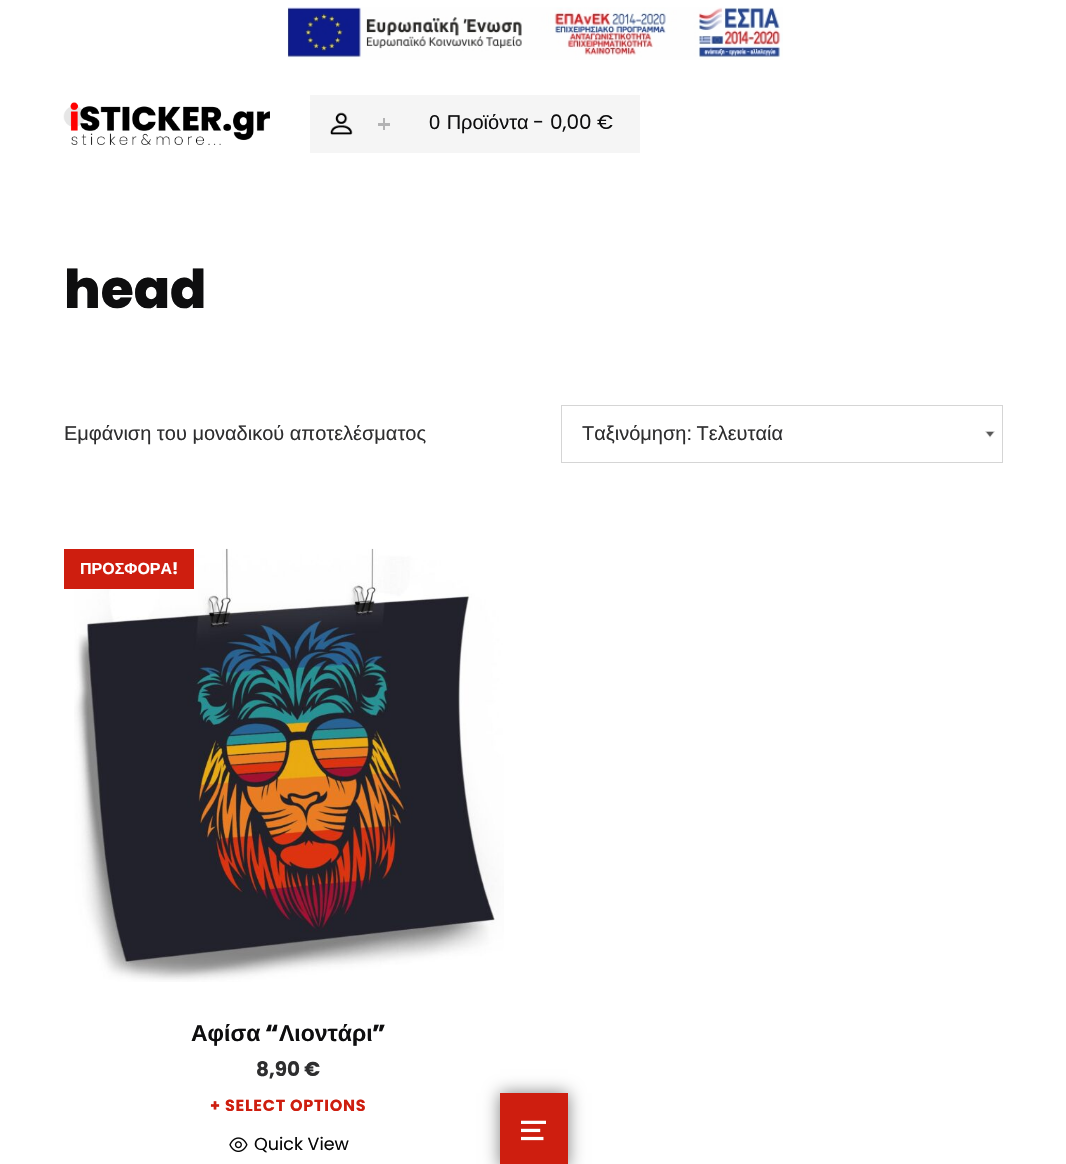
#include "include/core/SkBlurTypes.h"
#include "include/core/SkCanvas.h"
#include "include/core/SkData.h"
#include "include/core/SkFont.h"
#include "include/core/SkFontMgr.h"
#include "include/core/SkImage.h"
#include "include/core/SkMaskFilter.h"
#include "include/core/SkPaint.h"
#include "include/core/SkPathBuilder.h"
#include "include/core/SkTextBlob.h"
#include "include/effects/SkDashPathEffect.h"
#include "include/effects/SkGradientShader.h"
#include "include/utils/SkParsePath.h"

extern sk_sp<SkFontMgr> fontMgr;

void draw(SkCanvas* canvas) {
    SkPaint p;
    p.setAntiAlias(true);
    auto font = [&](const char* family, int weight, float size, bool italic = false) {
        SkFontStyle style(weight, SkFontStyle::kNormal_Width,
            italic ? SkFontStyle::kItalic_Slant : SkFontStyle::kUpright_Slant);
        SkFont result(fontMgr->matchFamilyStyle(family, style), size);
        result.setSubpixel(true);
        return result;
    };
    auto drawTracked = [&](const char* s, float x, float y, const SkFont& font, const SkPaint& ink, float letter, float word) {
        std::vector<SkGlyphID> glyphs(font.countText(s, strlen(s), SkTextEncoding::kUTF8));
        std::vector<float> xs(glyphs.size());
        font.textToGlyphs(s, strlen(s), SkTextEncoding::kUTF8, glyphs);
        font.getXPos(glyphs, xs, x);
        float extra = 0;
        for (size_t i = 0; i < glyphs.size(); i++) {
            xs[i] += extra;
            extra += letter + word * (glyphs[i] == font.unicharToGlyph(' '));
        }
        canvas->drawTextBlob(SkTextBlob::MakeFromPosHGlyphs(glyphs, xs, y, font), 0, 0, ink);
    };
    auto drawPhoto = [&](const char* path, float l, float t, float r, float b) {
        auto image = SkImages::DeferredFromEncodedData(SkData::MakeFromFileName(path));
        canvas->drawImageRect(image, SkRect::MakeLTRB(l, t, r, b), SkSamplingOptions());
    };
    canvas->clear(0xFFFFFFFF);
    drawPhoto("media/1.png", 287, 7, 783, 60);
    drawPhoto("media/2.png", 63, 102, 270, 145);
    p.setColor(0xFFF5F5F5);
    canvas->drawRect(SkRect::MakeLTRB(310, 95, 640, 153), p);
    drawPhoto("media/3.png", 330, 112, 353, 135);
    p.setColor(0xFFB3B3B4);
    canvas->drawRect(SkRect::MakeLTRB(378, 123, 390, 126), p);
    canvas->drawRect(SkRect::MakeLTRB(383, 118, 385, 130), p);
    auto font1 = font("Liberation Sans", 400, 20);
    p.setColor(0xFF0E0E0F);
    drawTracked("0 Προϊόντα", 429, 129, font1, p, 0, 1);
    auto font2 = font("Poppins", 400, 20);
    canvas->drawString("-", 533, 129, font2, p);
    canvas->drawString("0,00 €", 550, 129, font2, p);
    p.setColor(0x80000000);
    p.setMaskFilter(SkMaskFilter::MakeBlur(kNormal_SkBlurStyle, 8));
    canvas->drawRect(SkRect::MakeLTRB(500, 1093, 568, 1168), p);
    p.setMaskFilter(nullptr);
    p.setColor(0xFFCE1E0F);
    canvas->drawRect(SkRect::MakeLTRB(500, 1093, 568, 1164), p);
    drawPhoto("media/4.png", 521, 1120, 546, 1141);
    auto font3 = font("Poppins", 800, 53.5f);
    p.setColor(0xFF0E0E0F);
    canvas->drawString("head", 64, 308, font3, p);
    p.setColor(0xFF2E2E2F);
    canvas->drawString("Εμφάνιση του μοναδικού αποτελέσματος", 64, 440, font1, p);
    drawPhoto("media/5.png", 985, 431, 995, 438);
    p.setStyle(SkPaint::kStroke_Style);
    p.setStrokeWidth(1);
    p.setColor(0xFFD5D5D5);
    canvas->drawRect(SkRect::MakeLTRB(561.5f, 405.5f, 1002.5f, 462.5f), p);
    p.setStyle(SkPaint::kFill_Style);
    p.setColor(0xFF2E2E2F);
    drawTracked("Ταξινόμηση: Τελευταία", 582, 440, font1, p, 0, -1);
    drawPhoto("media/6.png", 74, 548, 504, 982);
    p.setColor(0xFFCE1E0F);
    canvas->drawRect(SkRect::MakeLTRB(64, 549, 194, 589), p);
    auto font4 = font("Liberation Sans", 700, 16);
    p.setColor(0xFFFFFFFF);
    canvas->drawString("ΠΡΟΣΦΟΡΑ", 80, 574, font4, p);
    auto font5 = font("Poppins", 700, 16);
    canvas->drawString("!", 172, 574, font5, p);
    auto font6 = font("Liberation Sans", 700, 23);
    p.setColor(0xFF0E0E0F);
    canvas->drawString("Αφίσα", 191, 1041, font6, p);
    auto font7 = font("Poppins", 800, 23);
    canvas->drawString("“", 265, 1041, font7, p);
    canvas->drawString("Λιοντάρι", 279, 1041, font6, p);
    canvas->drawString("”", 372, 1041, font7, p);
    auto font8 = font("Poppins", 700, 20);
    p.setColor(0xFF2E2E2F);
    canvas->drawString("8,90 €", 256, 1076, font8, p);
    p.setColor(0xFFCE1E0F);
    drawTracked("+ SELECT OPTIONS", 210, 1111, font5, p, 0.75f, 0);
    drawPhoto("media/7.png", 229, 1137, 248, 1152);
    auto font9 = font("Poppins", 400, 17.5f);
    p.setColor(0xFF070707);
    canvas->drawString("Quick View", 254, 1150, font9, p);
}
